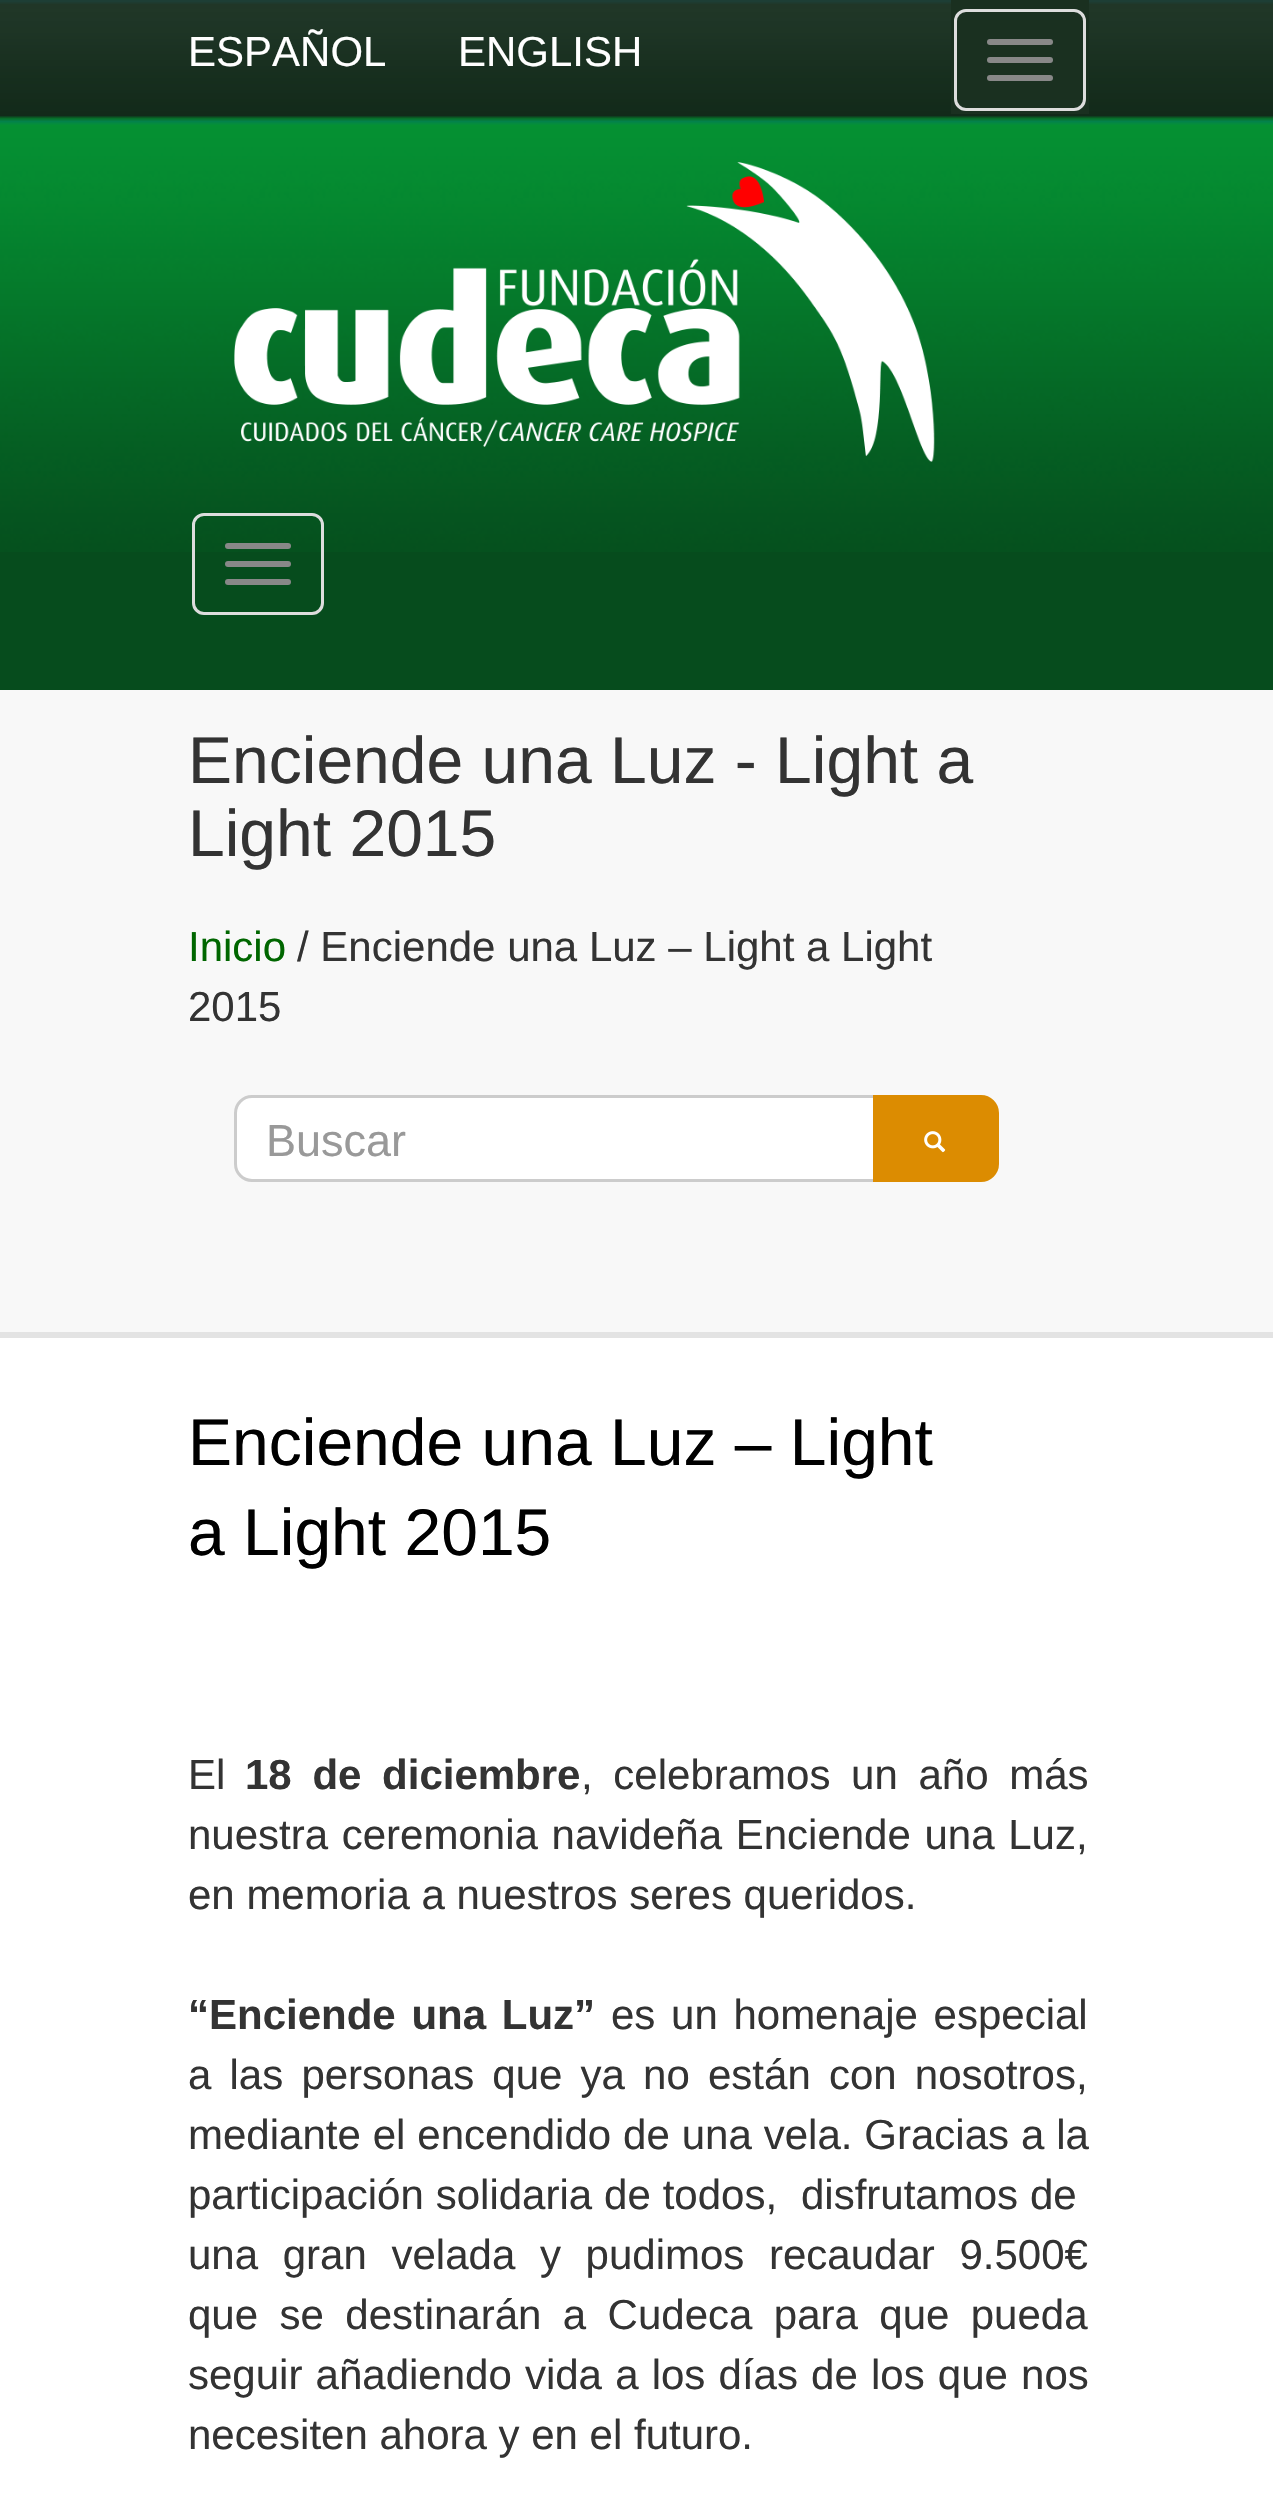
#include "include/core/SkBlurTypes.h"
#include "include/core/SkCanvas.h"
#include "include/core/SkData.h"
#include "include/core/SkFont.h"
#include "include/core/SkFontMgr.h"
#include "include/core/SkImage.h"
#include "include/core/SkMaskFilter.h"
#include "include/core/SkPaint.h"
#include "include/core/SkPathBuilder.h"
#include "include/core/SkTextBlob.h"
#include "include/effects/SkDashPathEffect.h"
#include "include/effects/SkGradientShader.h"
#include "include/utils/SkParsePath.h"

extern sk_sp<SkFontMgr> fontMgr;

void draw(SkCanvas* canvas) {
    SkPaint p;
    p.setAntiAlias(true);
    auto font = [&](const char* family, int weight, float size, bool italic = false) {
        SkFontStyle style(weight, SkFontStyle::kNormal_Width,
            italic ? SkFontStyle::kItalic_Slant : SkFontStyle::kUpright_Slant);
        SkFont result(fontMgr->matchFamilyStyle(family, style), size);
        result.setSubpixel(true);
        return result;
    };
    auto drawTracked = [&](const char* s, float x, float y, const SkFont& font, const SkPaint& ink, float letter, float word) {
        std::vector<SkGlyphID> glyphs(font.countText(s, strlen(s), SkTextEncoding::kUTF8));
        std::vector<float> xs(glyphs.size());
        font.textToGlyphs(s, strlen(s), SkTextEncoding::kUTF8, glyphs);
        font.getXPos(glyphs, xs, x);
        float extra = 0;
        for (size_t i = 0; i < glyphs.size(); i++) {
            xs[i] += extra;
            extra += letter + word * (glyphs[i] == font.unicharToGlyph(' '));
        }
        canvas->drawTextBlob(SkTextBlob::MakeFromPosHGlyphs(glyphs, xs, y, font), 0, 0, ink);
    };
    auto drawPhoto = [&](const char* path, float l, float t, float r, float b) {
        auto image = SkImages::DeferredFromEncodedData(SkData::MakeFromFileName(path));
        canvas->drawImageRect(image, SkRect::MakeLTRB(l, t, r, b), SkSamplingOptions());
    };
    canvas->clear(0xFFFFFFFF);
    drawPhoto("media/2.png", 0, 116, 1273, 552);
    drawPhoto("media/1.png", 0, 0, 1273, 125);
    auto font1 = font("Liberation Sans", 400, 42);
    p.setColor(0xFFFFFFFF);
    canvas->drawString("ESPAÑOL", 188, 66, font1, p);
    canvas->drawString("ENGLISH", 458, 66, font1, p);
    p.setColor(0xFF1A3020);
    canvas->drawRect(SkRect::MakeLTRB(951, 0, 1089, 114), p);
    p.setStyle(SkPaint::kStroke_Style);
    p.setStrokeWidth(3);
    p.setColor(0xFFDDDDDD);
    canvas->drawRoundRect(SkRect::MakeLTRB(955.5f, 10.5f, 1084.5f, 109.5f), 10.5f, 10.5f, p);
    p.setStyle(SkPaint::kFill_Style);
    p.setColor(0xFF888888);
    canvas->drawRoundRect(SkRect::MakeLTRB(987, 39, 1053, 45), 3, 3, p);
    canvas->drawRoundRect(SkRect::MakeLTRB(987, 57, 1053, 63), 3, 3, p);
    canvas->drawRoundRect(SkRect::MakeLTRB(987, 75, 1053, 81), 3, 3, p);
    p.setColor(0xFF064C1D);
    canvas->drawRect(SkRect::MakeLTRB(0, 552, 1273, 690), p);
    drawPhoto("media/3.png", 234, 162, 935, 462);
    p.setStyle(SkPaint::kStroke_Style);
    p.setColor(0xFFDDDDDD);
    canvas->drawRoundRect(SkRect::MakeLTRB(193.5f, 514.5f, 322.5f, 613.5f), 10.5f, 10.5f, p);
    p.setStyle(SkPaint::kFill_Style);
    p.setColor(0xFF888888);
    canvas->drawRoundRect(SkRect::MakeLTRB(225, 543, 291, 549), 3, 3, p);
    canvas->drawRoundRect(SkRect::MakeLTRB(225, 561, 291, 567), 3, 3, p);
    canvas->drawRoundRect(SkRect::MakeLTRB(225, 579, 291, 585), 3, 3, p);
    p.setColor(0xFFF8F8F8);
    canvas->drawRect(SkRect::MakeLTRB(0, 690, 1273, 1332), p);
    p.setColor(0xFFE3E3E3);
    canvas->drawRect(SkRect::MakeLTRB(0, 1332, 1273, 1338), p);
    auto font2 = font("Liberation Sans", 400, 66);
    p.setColor(0xFF333333);
    canvas->drawString("Enciende una Luz - Light a", 188, 783, font2, p);
    canvas->drawString("Light 2015", 188, 856, font2, p);
    p.setColor(0xFF006600);
    canvas->drawString("Inicio", 188, 961, font1, p);
    p.setColor(0xFF333333);
    canvas->drawString("/ Enciende una Luz – Light a Light", 297, 961, font1, p);
    canvas->drawString("2015", 188, 1021, font1, p);
    p.setColor(0xFFFFFFFF);
    canvas->drawRoundRect(SkRect::MakeLTRB(235.5f, 1096.5f, 889.5f, 1180.5f), 16.5f, 16.5f, p);
    p.setStyle(SkPaint::kStroke_Style);
    p.setColor(0xFFCCCCCC);
    canvas->drawRoundRect(SkRect::MakeLTRB(235.5f, 1096.5f, 889.5f, 1180.5f), 16.5f, 16.5f, p);
    auto font3 = font("Liberation Sans", 400, 45);
    p.setStyle(SkPaint::kFill_Style);
    p.setColor(0xFF999999);
    canvas->drawString("Buscar", 266, 1156, font3, p);
    p.setColor(0xFFDC8C01);
    canvas->drawPath(SkPathBuilder().moveTo(874.5f, 1096.5f).lineTo(981, 1096.5f).cubicTo(990, 1096.5f, 997.5f, 1104, 997.5f, 1113).lineTo(997.5f, 1164).cubicTo(997.5f, 1173, 990, 1180.5f, 981, 1180.5f).lineTo(874.5f, 1180.5f).close().detach(), p);
    p.setStyle(SkPaint::kStroke_Style);
    canvas->drawPath(SkPathBuilder().moveTo(874.5f, 1096.5f).lineTo(981, 1096.5f).cubicTo(990, 1096.5f, 997.5f, 1104, 997.5f, 1113).lineTo(997.5f, 1164).cubicTo(997.5f, 1173, 990, 1180.5f, 981, 1180.5f).lineTo(874.5f, 1180.5f).close().detach(), p);
    drawPhoto("media/4.png", 924, 1131, 946, 1153);
    p.setStyle(SkPaint::kFill_Style);
    p.setColor(0xFF000000);
    canvas->drawString("Enciende una Luz – Light", 188, 1465, font2, p);
    canvas->drawString("a Light 2015", 188, 1555, font2, p);
    p.setColor(0xFF333333);
    canvas->drawString("El", 188, 1789, font1, p);
    auto font4 = font("Liberation Sans", 700, 42);
    drawTracked("18 de diciembre", 245, 1789, font4, p, 0, 9);
    drawTracked(", celebramos un año más", 581, 1789, font1, p, 0, 9);
    drawTracked("nuestra ceremonia navideña Enciende una Luz,", 188, 1849, font1, p, 0, 2);
    canvas->drawString("en memoria a nuestros seres queridos.", 188, 1909, font1, p);
    drawTracked("“Enciende una Luz”", 188, 2029, font4, p, 0, 4);
    drawTracked("es un homenaje especial", 611, 2029, font1, p, 0, 4);
    drawTracked("a las personas que ya no están con nosotros,", 188, 2089, font1, p, 0, 6.5f);
    drawTracked("mediante el encendido de una vela. Gracias a la", 188, 2149, font1, p, 0, 0.25f);
    drawTracked("participación solidaria de todos,  disfrutamos de", 188, 2209, font1, p, 0, 0.25f);
    drawTracked("una gran velada y pudimos recaudar 9.500€", 188, 2269, font1, p, 0, 13);
    drawTracked("que se destinarán a Cudeca para que pueda", 188, 2329, font1, p, 0, 9.75f);
    drawTracked("seguir añadiendo vida a los días de los que nos", 188, 2389, font1, p, 0, 1.5f);
    canvas->drawString("necesiten ahora y en el futuro.", 188, 2449, font1, p);
}
